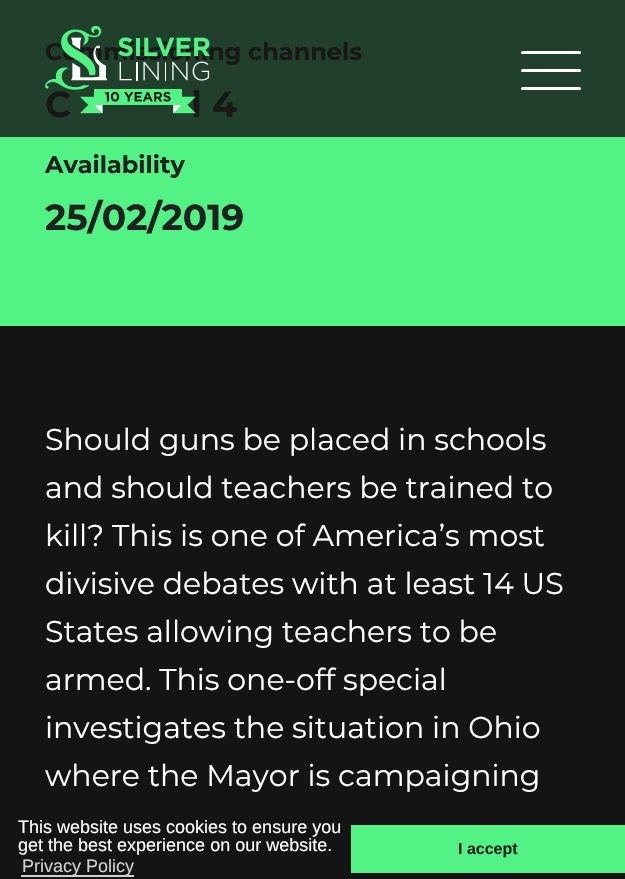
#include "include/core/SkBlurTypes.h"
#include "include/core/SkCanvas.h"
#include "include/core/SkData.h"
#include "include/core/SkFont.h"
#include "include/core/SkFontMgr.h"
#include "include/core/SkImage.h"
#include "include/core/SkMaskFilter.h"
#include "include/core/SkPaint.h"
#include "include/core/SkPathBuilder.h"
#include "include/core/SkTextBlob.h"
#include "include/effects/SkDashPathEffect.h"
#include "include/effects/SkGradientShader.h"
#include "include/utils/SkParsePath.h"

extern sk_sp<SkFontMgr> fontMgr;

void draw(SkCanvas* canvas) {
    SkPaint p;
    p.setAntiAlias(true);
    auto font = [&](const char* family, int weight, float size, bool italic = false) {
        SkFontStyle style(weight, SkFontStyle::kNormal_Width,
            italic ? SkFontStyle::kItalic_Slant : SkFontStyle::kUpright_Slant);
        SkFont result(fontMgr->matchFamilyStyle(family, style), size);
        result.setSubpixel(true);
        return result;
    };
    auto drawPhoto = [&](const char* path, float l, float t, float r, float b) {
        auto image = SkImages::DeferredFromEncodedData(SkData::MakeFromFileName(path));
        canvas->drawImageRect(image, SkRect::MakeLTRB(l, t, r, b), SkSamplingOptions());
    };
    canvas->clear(0xFF52F285);
    p.setColor(0xFF20402B);
    canvas->drawRect(SkRect::MakeLTRB(0, 0, 625, 137), p);
    auto font1 = font("Montserrat", 700, 24);
    p.setColor(0xFF171717);
    canvas->drawString("Commissioning channels", 45, 60, font1, p);
    auto font2 = font("Montserrat", 700, 36);
    canvas->drawString("C", 45, 117, font2, p);
    canvas->drawString("l 4", 191, 117, font2, p);
    drawPhoto("media/1.png", 45, 26, 210, 114);
    p.setColor(0xFFFFFFFF);
    canvas->drawRoundRect(SkRect::MakeLTRB(521, 51, 581, 54), 1.5f, 1.5f, p);
    canvas->drawRoundRect(SkRect::MakeLTRB(521, 69, 581, 72), 1.5f, 1.5f, p);
    canvas->drawRoundRect(SkRect::MakeLTRB(521, 87, 581, 90), 1.5f, 1.5f, p);
    p.setColor(0xFF212121);
    canvas->drawString("Availability", 45, 173, font1, p);
    canvas->drawString("25/02/2019", 45, 230, font2, p);
    p.setColor(0xFF141414);
    canvas->drawRect(SkRect::MakeLTRB(0, 326, 625, 879), p);
    auto font3 = font("Montserrat", 400, 30);
    p.setColor(0xFFFFFFFF);
    {
        const struct { const char* s; float x, y; } items[] = {
            {"Should guns be placed in schools", 45, 450},
            {"and should teachers be trained to", 45, 498},
            {"kill? This is one of America’s most", 45, 546},
            {"divisive debates with at least 14 US", 45, 594},
            {"States allowing teachers to be", 45, 642},
            {"armed. This one-off special", 45, 690},
            {"investigates the situation in Ohio", 45, 738},
            {"where the Mayor is campaigning", 45, 786},
        };
        for (auto [s, x, y] : items) {
            canvas->drawString(s, x, y, font3, p);
        }
    }
    auto font4 = font("Liberation Sans", 400, 18);
    canvas->drawString("This website uses cookies to ensure you", 18, 833, font4, p);
    canvas->drawString("get the best experience on our website.", 18, 851, font4, p);
    p.setColor(0xFFD0D0D0);
    canvas->drawRect(SkRect::MakeLTRB(21, 875, 134, 877), p);
    canvas->drawString("Privacy Policy", 22, 872, font4, p);
    p.setColor(0xFF52F285);
    canvas->drawRect(SkRect::MakeLTRB(351, 825, 625, 873), p);
    auto font5 = font("Liberation Sans", 700, 16);
    p.setColor(0xFF212121);
    canvas->drawString("I accept", 458, 854, font5, p);
}
